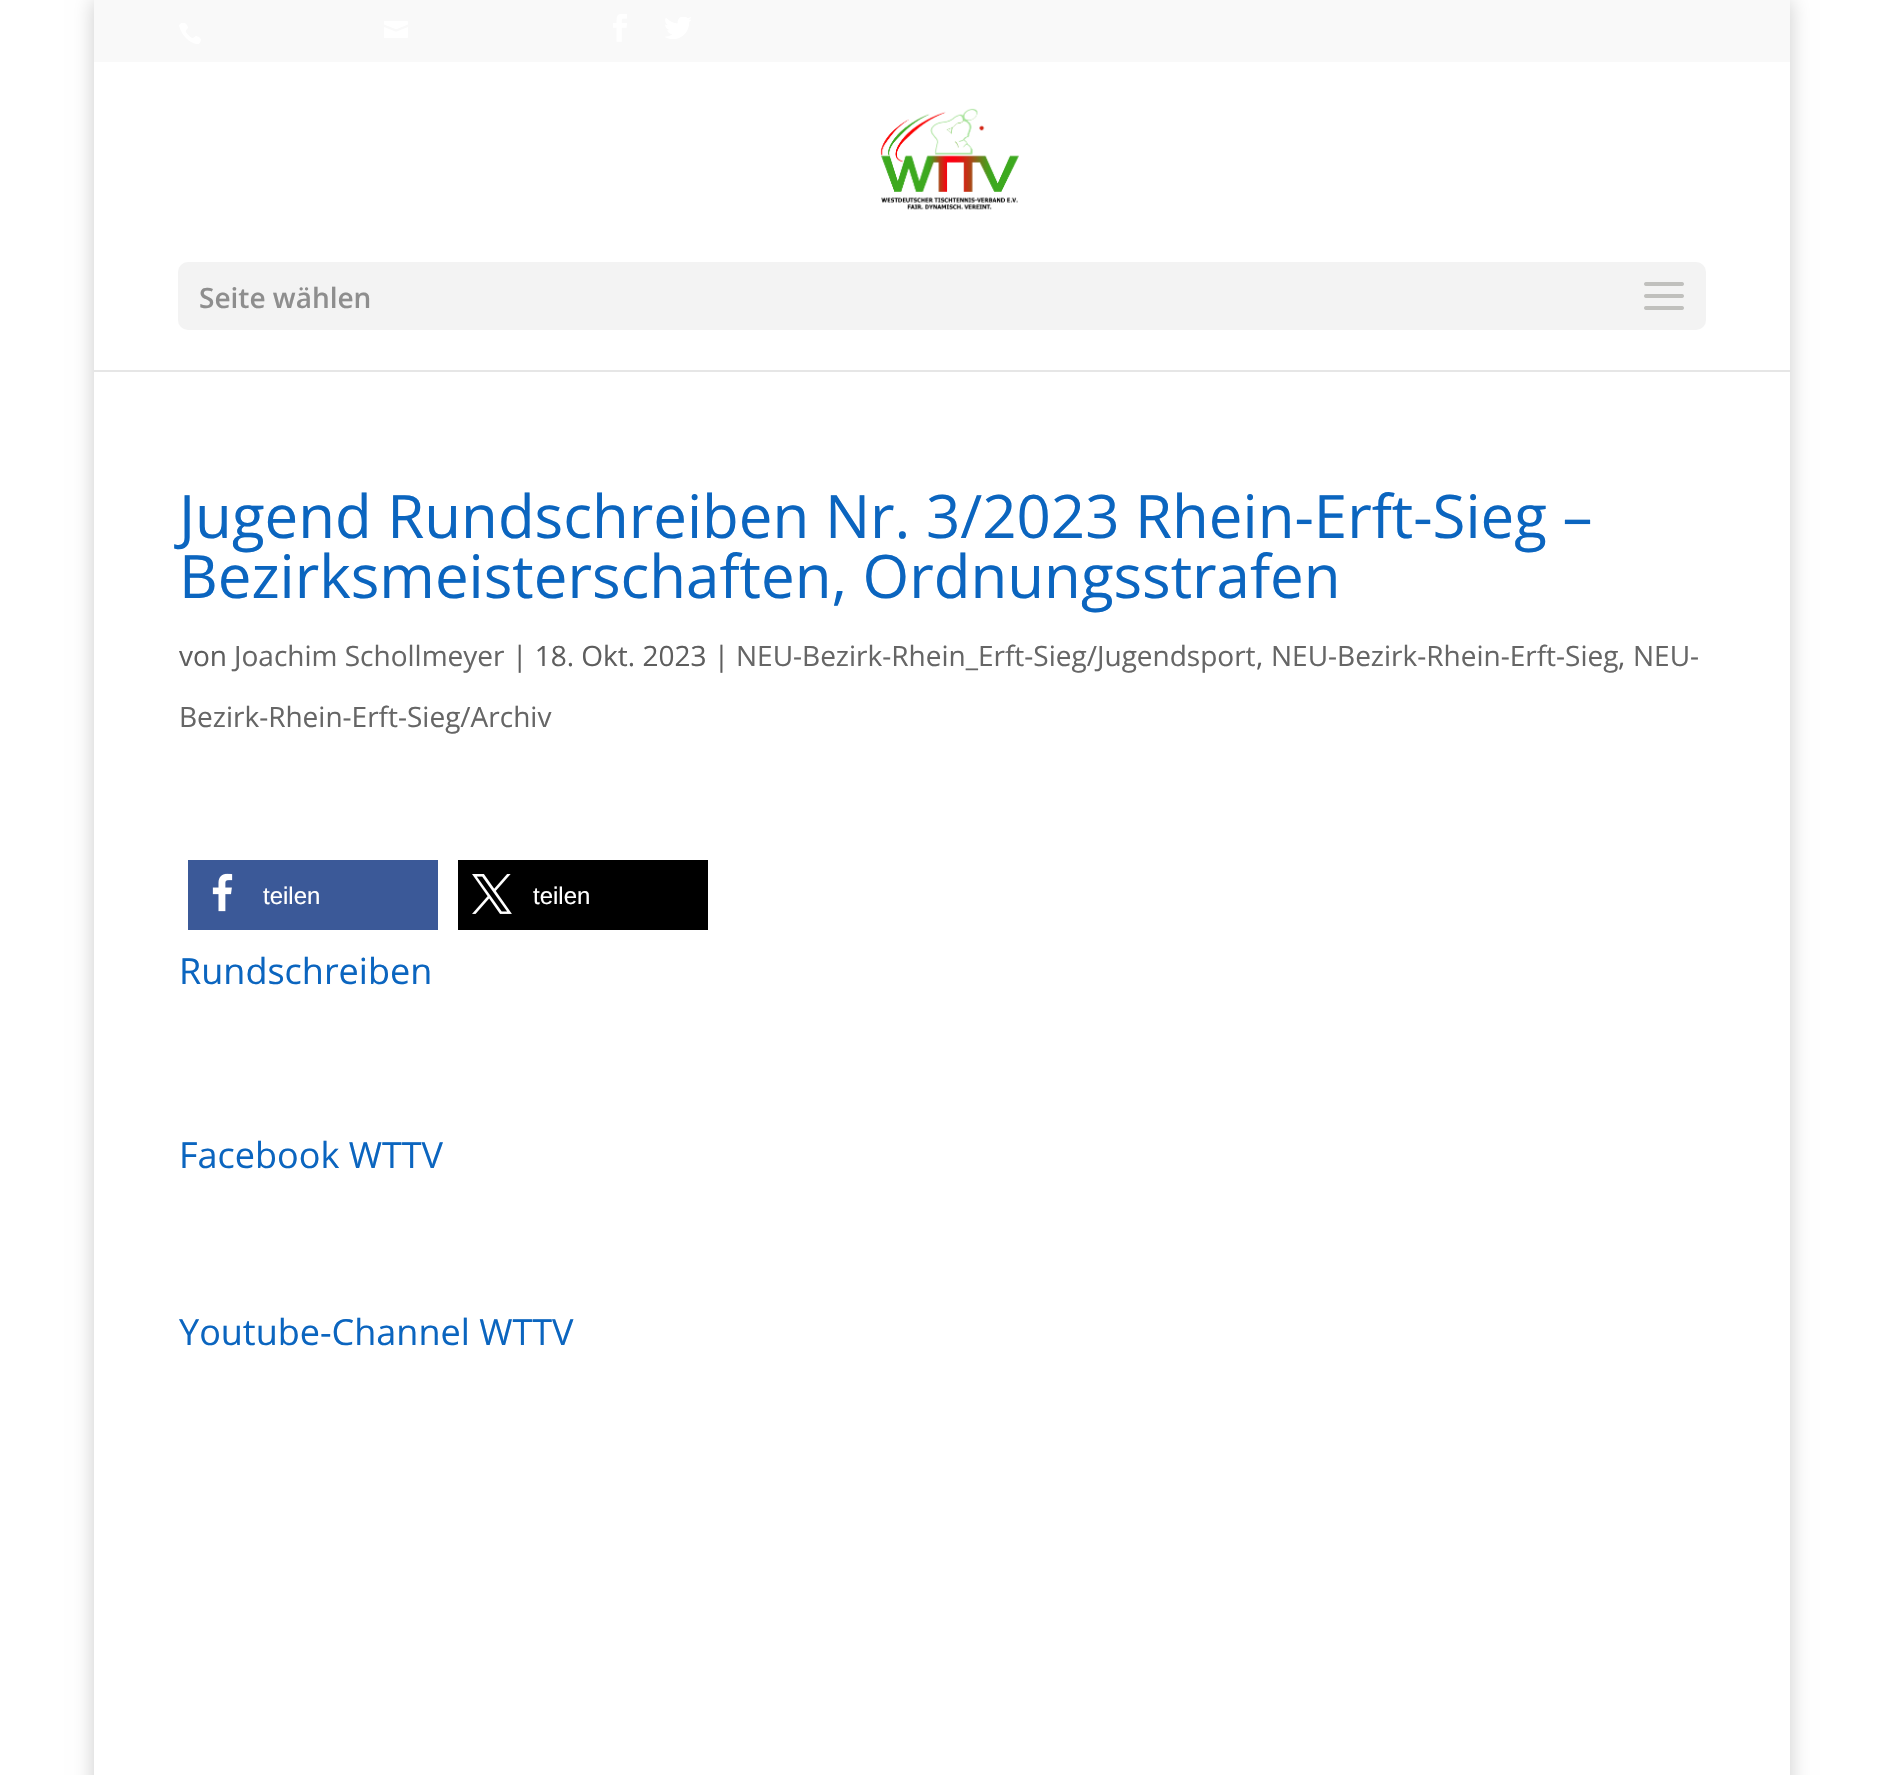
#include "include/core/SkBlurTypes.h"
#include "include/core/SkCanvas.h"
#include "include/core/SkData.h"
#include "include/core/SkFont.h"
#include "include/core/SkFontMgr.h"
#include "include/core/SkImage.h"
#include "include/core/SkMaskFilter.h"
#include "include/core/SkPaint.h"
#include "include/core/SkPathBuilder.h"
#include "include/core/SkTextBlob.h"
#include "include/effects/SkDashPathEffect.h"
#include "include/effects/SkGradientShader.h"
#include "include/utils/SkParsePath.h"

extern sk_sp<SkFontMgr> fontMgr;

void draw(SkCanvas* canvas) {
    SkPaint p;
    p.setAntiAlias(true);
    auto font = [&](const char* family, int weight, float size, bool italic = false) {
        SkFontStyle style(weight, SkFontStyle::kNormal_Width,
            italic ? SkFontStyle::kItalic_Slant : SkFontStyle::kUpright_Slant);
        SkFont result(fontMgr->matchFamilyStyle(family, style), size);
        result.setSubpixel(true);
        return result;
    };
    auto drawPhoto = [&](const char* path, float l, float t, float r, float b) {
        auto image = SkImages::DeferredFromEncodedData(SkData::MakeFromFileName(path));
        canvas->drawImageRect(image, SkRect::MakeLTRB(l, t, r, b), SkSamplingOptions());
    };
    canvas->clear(0xFFFFFFFF);
    canvas->save();
    canvas->clipPath(SkPathBuilder(SkPathFillType::kEvenOdd).moveTo(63, 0).lineTo(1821, 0).lineTo(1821, 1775).lineTo(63, 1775).close().moveTo(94, 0).lineTo(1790, 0).lineTo(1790, 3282).lineTo(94, 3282).close().detach(), true);
    p.setColor(0x33000000);
    p.setMaskFilter(SkMaskFilter::MakeBlur(kNormal_SkBlurStyle, 10));
    canvas->drawRect(SkRect::MakeLTRB(94, 0, 1790, 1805), p);
    p.setMaskFilter(nullptr);
    canvas->restore();
    p.setColor(0xFFF9F9F9);
    canvas->drawRect(SkRect::MakeLTRB(94, 0, 1790, 62), p);
    drawPhoto("media/1.png", 179, 23, 201, 44);
    drawPhoto("media/2.png", 384, 21, 408, 38);
    drawPhoto("media/3.png", 613, 14, 627, 42);
    drawPhoto("media/4.png", 665, 17, 691, 39);
    p.setColor(0xFFE6E6E6);
    canvas->drawRect(SkRect::MakeLTRB(94, 370, 1790, 372), p);
    drawPhoto("media/5.png", 880, 108, 1019, 210);
    p.setColor(0xFFF3F3F3);
    canvas->drawRoundRect(SkRect::MakeLTRB(178, 262, 1706, 330), 10, 10, p);
    auto font1 = font("Open Sans", 600, 28);
    p.setColor(0xFF8E8E8E);
    canvas->drawString("Seite wählen", 199, 308, font1, p);
    drawPhoto("media/6.png", 1644, 282, 1684, 310);
    auto font2 = font("Open Sans", 400, 60);
    p.setColor(0xFF0B65BF);
    canvas->drawString("Jugend Rundschreiben Nr. 3/2023 Rhein-Erft-Sieg –", 179, 538, font2, p);
    canvas->drawString("Bezirksmeisterschaften, Ordnungsstrafen", 179, 598, font2, p);
    auto font3 = font("Open Sans", 400, 28);
    p.setColor(0xFF5E5E5E);
    canvas->drawString("von", 179, 666, font3, p);
    p.setColor(0xFF666666);
    canvas->drawString("Joachim Schollmeyer", 234, 666, font3, p);
    p.setColor(0xFF5E5E5E);
    canvas->drawString("| 18. Okt. 2023 |", 512, 666, font3, p);
    p.setColor(0xFF666666);
    canvas->drawString("NEU-Bezirk-Rhein_Erft-Sieg/Jugendsport", 736, 666, font3, p);
    p.setColor(0xFF5E5E5E);
    canvas->drawString(",", 1256, 666, font3, p);
    p.setColor(0xFF666666);
    canvas->drawString("NEU-Bezirk-Rhein-Erft-Sieg", 1271, 666, font3, p);
    p.setColor(0xFF5E5E5E);
    canvas->drawString(",", 1618, 666, font3, p);
    p.setColor(0xFF666666);
    canvas->drawString("NEU-", 1633, 666, font3, p);
    canvas->drawString("Bezirk-Rhein-Erft-Sieg/Archiv", 179, 727, font3, p);
    p.setColor(0xFF3B5998);
    canvas->drawRect(SkRect::MakeLTRB(188, 860, 438, 930), p);
    drawPhoto("media/7.png", 212, 873, 233, 912);
    auto font4 = font("Liberation Sans", 400, 24);
    p.setColor(0xFFFFFFFF);
    canvas->drawString("teilen", 263, 904, font4, p);
    p.setColor(0xFF000000);
    canvas->drawRect(SkRect::MakeLTRB(458, 860, 708, 930), p);
    drawPhoto("media/8.png", 472, 874, 512, 914);
    p.setColor(0xFFFFFFFF);
    canvas->drawString("teilen", 533, 904, font4, p);
    auto font5 = font("Open Sans", 400, 36);
    p.setColor(0xFF0B65BF);
    {
        const struct { const char* s; float x, y; } items[] = {
            {"Rundschreiben", 179, 984},
            {"Facebook WTTV", 179, 1168},
            {"Youtube-Channel WTTV", 179, 1345},
        };
        for (auto [s, x, y] : items) {
            canvas->drawString(s, x, y, font5, p);
        }
    }
}
